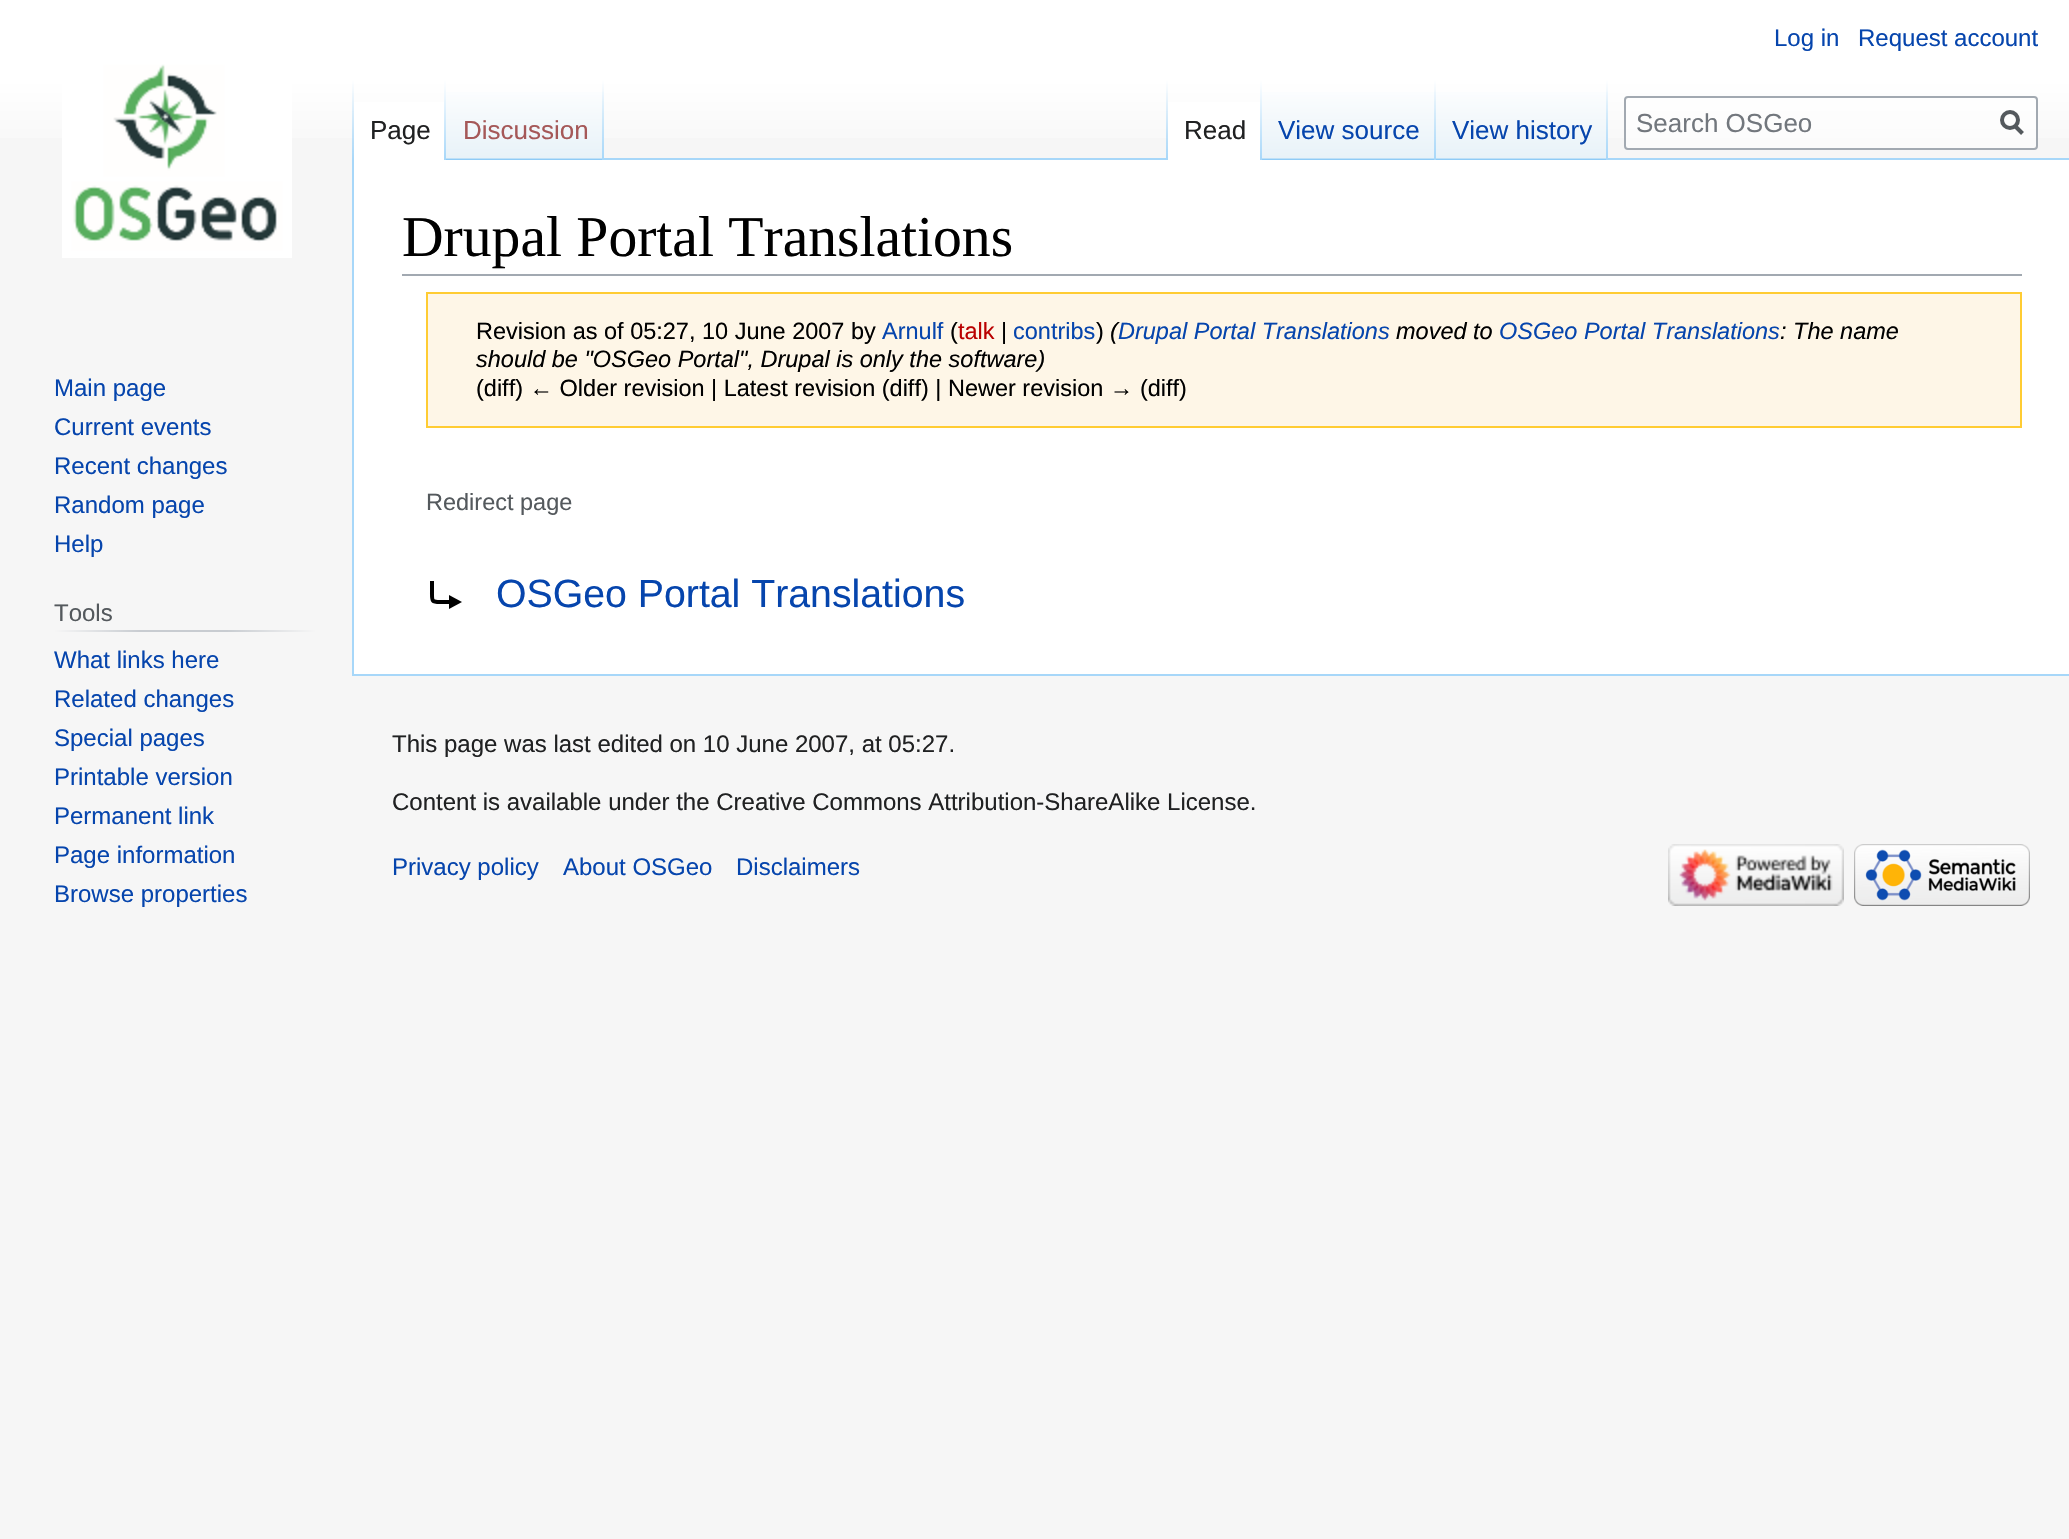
#include "include/core/SkBlurTypes.h"
#include "include/core/SkCanvas.h"
#include "include/core/SkData.h"
#include "include/core/SkFont.h"
#include "include/core/SkFontMgr.h"
#include "include/core/SkImage.h"
#include "include/core/SkMaskFilter.h"
#include "include/core/SkPaint.h"
#include "include/core/SkPathBuilder.h"
#include "include/core/SkTextBlob.h"
#include "include/effects/SkDashPathEffect.h"
#include "include/effects/SkGradientShader.h"
#include "include/utils/SkParsePath.h"

extern sk_sp<SkFontMgr> fontMgr;

void draw(SkCanvas* canvas) {
    SkPaint p;
    p.setAntiAlias(true);
    auto font = [&](const char* family, int weight, float size, bool italic = false) {
        SkFontStyle style(weight, SkFontStyle::kNormal_Width,
            italic ? SkFontStyle::kItalic_Slant : SkFontStyle::kUpright_Slant);
        SkFont result(fontMgr->matchFamilyStyle(family, style), size);
        result.setSubpixel(true);
        return result;
    };
    auto drawPhoto = [&](const char* path, float l, float t, float r, float b) {
        auto image = SkImages::DeferredFromEncodedData(SkData::MakeFromFileName(path));
        canvas->drawImageRect(image, SkRect::MakeLTRB(l, t, r, b), SkSamplingOptions());
    };
    canvas->clear(0xFFF6F6F6);
    {
        const SkColor colors[] = {0xFFFFFFFF, 0xFFF6F6F6};
        const float stops[] = {0.5f, 1};
        const SkPoint ends[] = {{1035, 0}, {1035, 160}};
        p.setShader(SkGradientShader::MakeLinear(ends, colors, stops, 2, SkTileMode::kClamp));
        p.setAlpha(255);
    }
    canvas->drawRect(SkRect::MakeLTRB(0, 0, 2069, 138), p);
    auto font1 = font("Liberation Sans", 400, 24);
    p.setShader(nullptr);
    p.setColor(0xFF0645AD);
    canvas->drawString("Log in", 1774, 46, font1, p);
    canvas->drawString("Request account", 1858, 46, font1, p);
    p.setColor(0xFFA7D7F9);
    canvas->drawRect(SkRect::MakeLTRB(352, 674, 2069, 676), p);
    canvas->drawRect(SkRect::MakeLTRB(352, 158, 354, 676), p);
    {
        const SkColor colors[] = {0x00A7D7F9, 0xFFA7D7F9};
        const float stops[] = {0, 1};
        const SkPoint ends[] = {{353, 80}, {353, 160}};
        p.setShader(SkGradientShader::MakeLinear(ends, colors, stops, 2, SkTileMode::kClamp));
        p.setAlpha(255);
    }
    canvas->drawRect(SkRect::MakeLTRB(352, 80, 354, 160), p);
    p.setShader(nullptr);
    p.setColor(0xFFFFFFFF);
    canvas->drawRect(SkRect::MakeLTRB(354, 102, 444, 160), p);
    {
        const SkColor colors[] = {0xFFFFFFFF, 0xFFA7D7F9};
        const float stops[] = {0, 1};
        const SkPoint ends[] = {{445, 80}, {445, 160}};
        p.setShader(SkGradientShader::MakeLinear(ends, colors, stops, 2, SkTileMode::kClamp));
        p.setAlpha(255);
    }
    canvas->drawRect(SkRect::MakeLTRB(444, 80, 446, 160), p);
    auto font2 = font("Liberation Sans", 400, 26);
    p.setShader(nullptr);
    p.setColor(0xFF202122);
    canvas->drawString("Page", 370, 139, font2, p);
    {
        const SkColor colors[] = {0xFF77C1F6, 0xFFE8F2F8, 0xFFFFFFFF};
        const float stops[] = {0, 0.03f, 1};
        const SkPoint ends[] = {{525, 160}, {525, 80}};
        p.setShader(SkGradientShader::MakeLinear(ends, colors, stops, 3, SkTileMode::kClamp));
        p.setAlpha(255);
    }
    canvas->drawRect(SkRect::MakeLTRB(446, 92, 604, 160), p);
    {
        const SkColor colors[] = {0x00A7D7F9, 0xFFA7D7F9};
        const float stops[] = {0, 1};
        const SkPoint ends[] = {{603, 80}, {603, 160}};
        p.setShader(SkGradientShader::MakeLinear(ends, colors, stops, 2, SkTileMode::kClamp));
        p.setAlpha(255);
    }
    canvas->drawRect(SkRect::MakeLTRB(602, 80, 604, 160), p);
    p.setShader(nullptr);
    p.setColor(0xFFA55858);
    canvas->drawString("Discussion", 463, 139, font2, p);
    p.setColor(0xFFA7D7F9);
    canvas->drawRect(SkRect::MakeLTRB(604, 158, 2069, 160), p);
    {
        const SkColor colors[] = {0x00A7D7F9, 0xFFA7D7F9};
        const float stops[] = {0, 1};
        const SkPoint ends[] = {{1167, 80}, {1167, 160}};
        p.setShader(SkGradientShader::MakeLinear(ends, colors, stops, 2, SkTileMode::kClamp));
        p.setAlpha(255);
    }
    canvas->drawRect(SkRect::MakeLTRB(1166, 80, 1168, 160), p);
    p.setShader(nullptr);
    p.setColor(0xFFFFFFFF);
    canvas->drawRect(SkRect::MakeLTRB(1168, 102, 1260, 160), p);
    {
        const SkColor colors[] = {0xFFFFFFFF, 0xFFA7D7F9};
        const float stops[] = {0, 1};
        const SkPoint ends[] = {{1261, 80}, {1261, 160}};
        p.setShader(SkGradientShader::MakeLinear(ends, colors, stops, 2, SkTileMode::kClamp));
        p.setAlpha(255);
    }
    canvas->drawRect(SkRect::MakeLTRB(1260, 80, 1262, 160), p);
    p.setShader(nullptr);
    p.setColor(0xFF202122);
    canvas->drawString("Read", 1184, 139, font2, p);
    {
        const SkColor colors[] = {0xFF77C1F6, 0xFFE8F2F8, 0xFFFFFFFF};
        const float stops[] = {0, 0.03f, 1};
        const SkPoint ends[] = {{1349, 160}, {1349, 80}};
        p.setShader(SkGradientShader::MakeLinear(ends, colors, stops, 3, SkTileMode::kClamp));
        p.setAlpha(255);
    }
    canvas->drawRect(SkRect::MakeLTRB(1262, 92, 1436, 160), p);
    {
        const SkColor colors[] = {0x00A7D7F9, 0xFFA7D7F9};
        const float stops[] = {0, 1};
        const SkPoint ends[] = {{1435, 80}, {1435, 160}};
        p.setShader(SkGradientShader::MakeLinear(ends, colors, stops, 2, SkTileMode::kClamp));
        p.setAlpha(255);
    }
    canvas->drawRect(SkRect::MakeLTRB(1434, 80, 1436, 160), p);
    p.setShader(nullptr);
    p.setColor(0xFF0645AD);
    canvas->drawString("View source", 1278, 139, font2, p);
    {
        const SkColor colors[] = {0xFF77C1F6, 0xFFE8F2F8, 0xFFFFFFFF};
        const float stops[] = {0, 0.03f, 1};
        const SkPoint ends[] = {{1522, 160}, {1522, 80}};
        p.setShader(SkGradientShader::MakeLinear(ends, colors, stops, 3, SkTileMode::kClamp));
        p.setAlpha(255);
    }
    canvas->drawRect(SkRect::MakeLTRB(1436, 92, 1608, 160), p);
    {
        const SkColor colors[] = {0x00A7D7F9, 0xFFA7D7F9};
        const float stops[] = {0, 1};
        const SkPoint ends[] = {{1607, 80}, {1607, 160}};
        p.setShader(SkGradientShader::MakeLinear(ends, colors, stops, 2, SkTileMode::kClamp));
        p.setAlpha(255);
    }
    canvas->drawRect(SkRect::MakeLTRB(1606, 80, 1608, 160), p);
    p.setShader(nullptr);
    p.setColor(0xFF0645AD);
    canvas->drawString("View history", 1452, 139, font2, p);
    p.setColor(0x80FFFFFF);
    canvas->drawRoundRect(SkRect::MakeLTRB(1625, 97, 2037, 149), 3, 3, p);
    p.setStyle(SkPaint::kStroke_Style);
    p.setStrokeWidth(2);
    p.setColor(0xFFA2A9B1);
    canvas->drawRoundRect(SkRect::MakeLTRB(1625, 97, 2037, 149), 3, 3, p);
    p.setStyle(SkPaint::kFill_Style);
    p.setColor(0xFF72777D);
    canvas->drawString("Search OSGeo", 1636, 132, font2, p);
    p.setStyle(SkPaint::kStroke_Style);
    p.setStrokeWidth(4);
    p.setColor(0xFF54595D);
    canvas->drawPath(SkPathBuilder().moveTo(2022.5f, 133.5f).lineTo(2014.5f, 125.5f).detach(), p);
    canvas->drawCircle(2010, 120, 8, p);
    drawPhoto("media/1.png", 62, 64, 292, 258);
    p.setStyle(SkPaint::kFill_Style);
    p.setColor(0xFF0645AD);
    {
        const struct { const char* s; float x, y; } items[] = {
            {"Main page", 54, 396},
            {"Current events", 54, 435},
            {"Recent changes", 54, 474},
            {"Random page", 54, 513},
            {"Help", 54, 552},
        };
        for (auto [s, x, y] : items) {
            canvas->drawString(s, x, y, font1, p);
        }
    }
    {
        const SkColor colors[] = {0xFFF6F6F6, 0xFFC8CCD1, 0xFFC8CCD1, 0xFFF6F6F6};
        const float stops[] = {0, 0.33f, 0.66f, 1};
        const SkPoint ends[] = {{54, 631}, {316, 631}};
        p.setShader(SkGradientShader::MakeLinear(ends, colors, stops, 4, SkTileMode::kClamp));
        p.setAlpha(255);
    }
    canvas->drawRect(SkRect::MakeLTRB(54, 630, 316, 632), p);
    p.setShader(nullptr);
    p.setColor(0xFF54595D);
    canvas->drawString("Tools", 54, 621, font1, p);
    p.setColor(0xFF0645AD);
    {
        const struct { const char* s; float x, y; } items[] = {
            {"What links here", 54, 668},
            {"Related changes", 54, 707},
            {"Special pages", 54, 746},
            {"Printable version", 54, 785},
            {"Permanent link", 54, 824},
            {"Page information", 54, 863},
            {"Browse properties", 54, 902},
        };
        for (auto [s, x, y] : items) {
            canvas->drawString(s, x, y, font1, p);
        }
    }
    p.setColor(0xFFFFFFFF);
    canvas->drawRect(SkRect::MakeLTRB(354, 160, 2069, 674), p);
    p.setColor(0xFFA2A9B1);
    canvas->drawRect(SkRect::MakeLTRB(402, 274, 2022, 276), p);
    auto font3 = font("Liberation Serif", 400, 57.6f);
    p.setColor(0xFF000000);
    canvas->drawString("Drupal Portal Translations", 402, 256, font3, p);
    p.setColor(0xFFFEF6E7);
    canvas->drawRect(SkRect::MakeLTRB(427, 293, 2021, 427), p);
    p.setStyle(SkPaint::kStroke_Style);
    p.setStrokeWidth(2);
    p.setColor(0xFFFFCC33);
    canvas->drawRect(SkRect::MakeLTRB(427, 293, 2021, 427), p);
    auto font4 = font("Liberation Sans", 400, 23.5f);
    p.setStyle(SkPaint::kFill_Style);
    p.setColor(0xFF000000);
    canvas->drawString("Revision as of 05:27, 10 June 2007 by", 476, 339, font4, p);
    p.setColor(0xFF0645AD);
    canvas->drawString("Arnulf", 882, 339, font4, p);
    p.setColor(0xFF000000);
    canvas->drawString("(", 950, 339, font4, p);
    p.setColor(0xFFBA0000);
    canvas->drawString("talk", 958, 339, font4, p);
    p.setColor(0xFF000000);
    canvas->drawString("|", 1001, 339, font4, p);
    p.setColor(0xFF0645AD);
    canvas->drawString("contribs", 1013, 339, font4, p);
    p.setColor(0xFF000000);
    canvas->drawString(")", 1096, 339, font4, p);
    auto font5 = font("Liberation Sans", 400, 23.5f, true);
    canvas->drawString("(", 1110, 339, font5, p);
    p.setColor(0xFF0645AD);
    canvas->drawString("Drupal Portal Translations", 1118, 339, font5, p);
    p.setColor(0xFF000000);
    canvas->drawString("moved to", 1396, 339, font5, p);
    p.setColor(0xFF0645AD);
    canvas->drawString("OSGeo Portal Translations", 1499, 339, font5, p);
    p.setColor(0xFF000000);
    canvas->drawString(": The name", 1780, 339, font5, p);
    canvas->drawString("should be \"OSGeo Portal\", Drupal is only the software)", 476, 367, font5, p);
    canvas->drawString("(diff) ← Older revision | Latest revision (diff) | Newer revision → (diff)", 476, 396, font4, p);
    p.setColor(0xFF54595D);
    canvas->drawString("Redirect page", 426, 510, font4, p);
    auto font6 = font("Liberation Sans", 400, 39.25f);
    p.setColor(0xFF0645AD);
    canvas->drawString("OSGeo Portal Translations", 496, 607, font6, p);
    p.setStyle(SkPaint::kStroke_Style);
    p.setStrokeWidth(4);
    p.setColor(0xFF000000);
    canvas->drawPath(SkPathBuilder().moveTo(432, 581).lineTo(432, 592.5f).cubicTo(432, 601, 431.5f, 602, 440, 602).lineTo(454, 602).detach(), p);
    p.setStyle(SkPaint::kFill_Style);
    canvas->drawPath(SkPathBuilder().moveTo(449, 595).lineTo(449, 609).lineTo(462, 602).close().detach(), p);
    p.setColor(0xFF202122);
    canvas->drawString("This page was last edited on 10 June 2007, at 05:27.", 392, 752, font1, p);
    canvas->drawString("Content is available under the Creative Commons Attribution-ShareAlike License.", 392, 810, font1, p);
    p.setColor(0xFF0645AD);
    {
        const struct { const char* s; float x, y; } items[] = {
            {"Privacy policy", 392, 875},
            {"About OSGeo", 563, 875},
            {"Disclaimers", 736, 875},
        };
        for (auto [s, x, y] : items) {
            canvas->drawString(s, x, y, font1, p);
        }
    }
    drawPhoto("media/2.png", 1668, 844, 1844, 906);
    drawPhoto("media/3.png", 1854, 844, 2030, 906);
}
